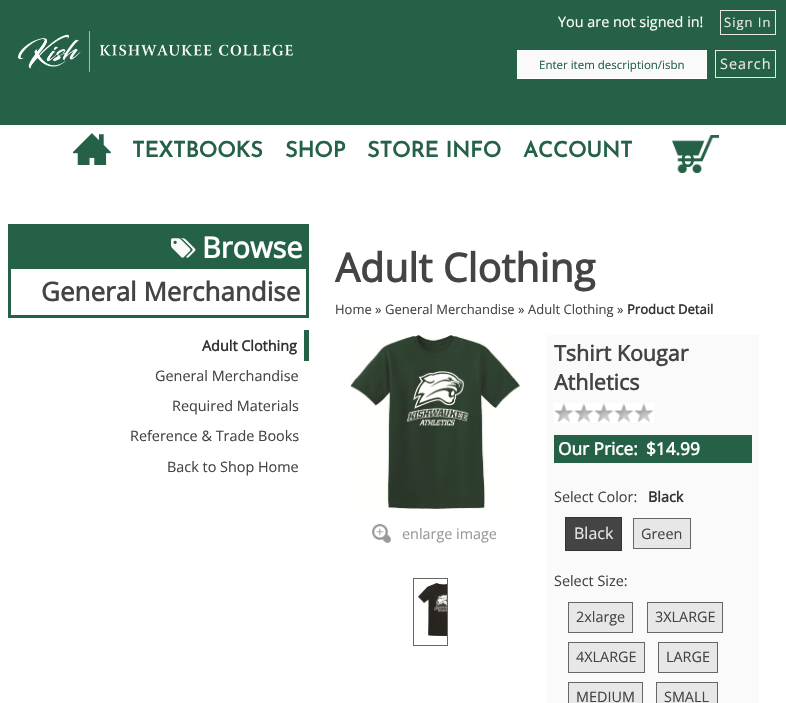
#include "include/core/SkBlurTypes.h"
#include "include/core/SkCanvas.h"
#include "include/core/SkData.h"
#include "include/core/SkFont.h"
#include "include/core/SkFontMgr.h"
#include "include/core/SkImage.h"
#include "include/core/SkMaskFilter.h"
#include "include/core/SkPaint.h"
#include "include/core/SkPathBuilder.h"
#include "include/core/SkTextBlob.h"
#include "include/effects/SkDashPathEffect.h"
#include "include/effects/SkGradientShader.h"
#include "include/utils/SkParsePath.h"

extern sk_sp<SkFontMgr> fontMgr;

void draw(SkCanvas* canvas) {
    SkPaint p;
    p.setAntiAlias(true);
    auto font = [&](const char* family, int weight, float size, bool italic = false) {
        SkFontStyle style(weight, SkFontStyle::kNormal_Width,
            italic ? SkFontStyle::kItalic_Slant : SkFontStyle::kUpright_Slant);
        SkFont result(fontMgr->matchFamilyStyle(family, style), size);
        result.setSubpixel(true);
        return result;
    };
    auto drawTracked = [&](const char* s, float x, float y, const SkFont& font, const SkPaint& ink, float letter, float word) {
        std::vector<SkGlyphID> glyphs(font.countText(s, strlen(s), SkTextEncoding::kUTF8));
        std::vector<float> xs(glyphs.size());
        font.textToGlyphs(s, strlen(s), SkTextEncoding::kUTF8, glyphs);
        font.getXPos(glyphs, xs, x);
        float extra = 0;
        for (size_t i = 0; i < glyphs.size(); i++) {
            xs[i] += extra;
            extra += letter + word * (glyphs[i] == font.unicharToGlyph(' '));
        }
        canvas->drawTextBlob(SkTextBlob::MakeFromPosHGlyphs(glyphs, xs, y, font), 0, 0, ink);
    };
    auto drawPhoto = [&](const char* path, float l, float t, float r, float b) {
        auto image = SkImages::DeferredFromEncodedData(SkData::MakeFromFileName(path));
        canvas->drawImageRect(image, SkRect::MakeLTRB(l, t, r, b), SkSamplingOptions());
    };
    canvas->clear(0xFFFFFFFF);
    p.setColor(0xFF246147);
    canvas->drawRect(SkRect::MakeLTRB(0, 0, 786, 125), p);
    auto font1 = font("Open Sans", 400, 14.4f);
    p.setColor(0xFFFFFFFF);
    canvas->drawString("You are not signed in!", 558, 27, font1, p);
    p.setStyle(SkPaint::kStroke_Style);
    p.setStrokeWidth(1);
    p.setColor(0xFFE7E7E7);
    canvas->drawRect(SkRect::MakeLTRB(720.5f, 10.5f, 775.5f, 34.5f), p);
    auto font2 = font("Open Sans", 400, 13);
    p.setStyle(SkPaint::kFill_Style);
    drawTracked("Sign In", 724, 27, font2, p, 1, 0);
    drawPhoto("media/1.png", 18, 31, 293, 72);
    p.setColor(0xFFFAFAFA);
    canvas->drawRect(SkRect::MakeLTRB(517.5f, 50.5f, 706.5f, 78.5f), p);
    p.setStyle(SkPaint::kStroke_Style);
    p.setColor(0xFFFFFFFF);
    canvas->drawRect(SkRect::MakeLTRB(517.5f, 50.5f, 706.5f, 78.5f), p);
    auto font3 = font("Open Sans", 400, 11.5f);
    p.setStyle(SkPaint::kFill_Style);
    p.setColor(0xFF246147);
    canvas->drawString("Enter item description/isbn", 539, 69, font3, p);
    p.setStyle(SkPaint::kStroke_Style);
    p.setColor(0xFFE7E7E7);
    canvas->drawRect(SkRect::MakeLTRB(715.5f, 50.5f, 775.5f, 77.5f), p);
    p.setStyle(SkPaint::kFill_Style);
    drawTracked("Search", 720, 69, font1, p, 1, 0);
    drawPhoto("media/2.png", 73, 133, 111, 165);
    auto font4 = font("Josefin Sans", 700, 21.5f);
    p.setColor(0xFF246147);
    {
        const struct { const char* s; float x, y; } items[] = {
            {"TEXTBOOKS", 132, 157},
            {"SHOP", 285, 157},
            {"STORE INFO", 367, 157},
            {"ACCOUNT", 523, 157},
        };
        for (auto [s, x, y] : items) {
            canvas->drawString(s, x, y, font4, p);
        }
    }
    drawPhoto("media/3.png", 672, 135, 719, 173);
    auto font5 = font("Josefin Sans", 700, 21);
    canvas->drawString("0", 681, 167, font5, p);
    canvas->drawRect(SkRect::MakeLTRB(8, 224, 309, 269), p);
    drawPhoto("media/4.png", 171, 238, 196, 258);
    auto font6 = font("Open Sans", 700, 29);
    p.setColor(0xFFFFFFFF);
    canvas->drawString("Browse", 202, 258, font6, p);
    {
        const struct { float l, t, r, b; SkColor color; } items[] = {
            {306, 269, 309, 318, 0xFF246147},
            {8, 315, 309, 318, 0xFF246147},
            {8, 269, 11, 318, 0xFF246147},
        };
        for (auto [l, t, r, b, color] : items) {
            p.setColor(color);
            canvas->drawRect(SkRect::MakeLTRB(l, t, r, b), p);
        }
    }
    auto font7 = font("Open Sans", 700, 26);
    p.setColor(0xFF444444);
    canvas->drawString("General Merchandise", 41, 301, font7, p);
    p.setColor(0xFF246147);
    canvas->drawRect(SkRect::MakeLTRB(304, 330, 309, 361), p);
    auto font8 = font("Open Sans", 700, 14.4f);
    p.setColor(0xFF333333);
    canvas->drawString("Adult Clothing", 202, 351, font8, p);
    p.setColor(0xFF444444);
    {
        const struct { const char* s; float x, y; } items[] = {
            {"General Merchandise", 155, 381},
            {"Required Materials", 172, 411},
            {"Reference & Trade Books", 130, 441},
            {"Back to Shop Home", 167, 472},
        };
        for (auto [s, x, y] : items) {
            canvas->drawString(s, x, y, font1, p);
        }
    }
    auto font9 = font("Open Sans", 700, 39.5f);
    canvas->drawString("Adult Clothing", 335, 282, font9, p);
    {
        const struct { const char* s; float x, y; } items[] = {
            {"Home »", 335, 314},
            {"General Merchandise »", 385, 314},
            {"Adult Clothing »", 528, 314},
        };
        for (auto [s, x, y] : items) {
            canvas->drawString(s, x, y, font2, p);
        }
    }
    auto font10 = font("Open Sans", 700, 13);
    p.setColor(0xFF333333);
    canvas->drawString("Product Detail", 627, 314, font10, p);
    drawPhoto("media/5.png", 350, 335, 520, 509);
    drawPhoto("media/6.png", 372, 524, 391, 543);
    p.setColor(0xFF999999);
    canvas->drawString("enlarge image", 402, 539, font1, p);
    p.setColor(0xFFFAFAFA);
    canvas->drawRect(SkRect::MakeLTRB(547, 335, 759, 703), p);
    auto font11 = font("Open Sans", 700, 21.5f);
    p.setColor(0xFF444444);
    canvas->drawString("Tshirt Kougar", 554, 361, font11, p);
    canvas->drawString("Athletics", 554, 390, font11, p);
    drawPhoto("media/7.png", 554, 403, 564, 423);
    drawPhoto("media/8.png", 564, 403, 574, 423);
    drawPhoto("media/7.png", 574, 403, 584, 423);
    drawPhoto("media/8.png", 584, 403, 594, 423);
    drawPhoto("media/7.png", 594, 403, 604, 423);
    drawPhoto("media/8.png", 604, 403, 614, 423);
    drawPhoto("media/7.png", 614, 403, 624, 423);
    drawPhoto("media/8.png", 624, 403, 634, 423);
    drawPhoto("media/7.png", 634, 403, 644, 423);
    drawPhoto("media/8.png", 644, 403, 654, 423);
    p.setColor(0xFF246147);
    canvas->drawRect(SkRect::MakeLTRB(554, 435, 752, 463), p);
    auto font12 = font("Open Sans", 700, 17.25f);
    p.setColor(0xFFFFFFFF);
    canvas->drawString("Our Price:", 558, 455, font12, p);
    canvas->drawString("$14.99", 646, 455, font12, p);
    p.setColor(0xFF444444);
    canvas->drawString("Select Color:", 554, 502, font1, p);
    p.setColor(0xFF333333);
    canvas->drawString("Black", 648, 502, font8, p);
    p.setColor(0xFF444444);
    canvas->drawRect(SkRect::MakeLTRB(565.5f, 517.5f, 621.5f, 550.5f), p);
    p.setStyle(SkPaint::kStroke_Style);
    p.setColor(0xFF333333);
    canvas->drawRect(SkRect::MakeLTRB(565.5f, 517.5f, 621.5f, 550.5f), p);
    auto font13 = font("Open Sans", 400, 16);
    p.setStyle(SkPaint::kFill_Style);
    p.setColor(0xFFE7E7E7);
    canvas->drawString("Black", 574, 539, font13, p);
    canvas->drawRect(SkRect::MakeLTRB(633.5f, 518.5f, 690.5f, 548.5f), p);
    p.setStyle(SkPaint::kStroke_Style);
    p.setColor(0xFF666666);
    canvas->drawRect(SkRect::MakeLTRB(633.5f, 518.5f, 690.5f, 548.5f), p);
    p.setStyle(SkPaint::kFill_Style);
    p.setColor(0xFF444444);
    canvas->drawString("Green", 641, 539, font1, p);
    canvas->drawString("Select Size:", 554, 586, font1, p);
    p.setColor(0xFFE7E7E7);
    canvas->drawRect(SkRect::MakeLTRB(568.5f, 602.5f, 632.5f, 632.5f), p);
    p.setStyle(SkPaint::kStroke_Style);
    p.setColor(0xFF666666);
    canvas->drawRect(SkRect::MakeLTRB(568.5f, 602.5f, 632.5f, 632.5f), p);
    p.setStyle(SkPaint::kFill_Style);
    p.setColor(0xFF444444);
    canvas->drawString("2xlarge", 576, 622, font1, p);
    p.setColor(0xFFE7E7E7);
    canvas->drawRect(SkRect::MakeLTRB(647.5f, 602.5f, 722.5f, 632.5f), p);
    p.setStyle(SkPaint::kStroke_Style);
    p.setColor(0xFF666666);
    canvas->drawRect(SkRect::MakeLTRB(647.5f, 602.5f, 722.5f, 632.5f), p);
    p.setStyle(SkPaint::kFill_Style);
    p.setColor(0xFF444444);
    canvas->drawString("3XLARGE", 655, 622, font1, p);
    p.setColor(0xFFE7E7E7);
    canvas->drawRect(SkRect::MakeLTRB(568.5f, 642.5f, 644.5f, 672.5f), p);
    p.setStyle(SkPaint::kStroke_Style);
    p.setColor(0xFF666666);
    canvas->drawRect(SkRect::MakeLTRB(568.5f, 642.5f, 644.5f, 672.5f), p);
    p.setStyle(SkPaint::kFill_Style);
    p.setColor(0xFF444444);
    canvas->drawString("4XLARGE", 576, 662, font1, p);
    p.setColor(0xFFE7E7E7);
    canvas->drawRect(SkRect::MakeLTRB(658.5f, 642.5f, 717.5f, 672.5f), p);
    p.setStyle(SkPaint::kStroke_Style);
    p.setColor(0xFF666666);
    canvas->drawRect(SkRect::MakeLTRB(658.5f, 642.5f, 717.5f, 672.5f), p);
    p.setStyle(SkPaint::kFill_Style);
    p.setColor(0xFF444444);
    canvas->drawString("LARGE", 666, 662, font1, p);
    p.setColor(0xFFE7E7E7);
    canvas->drawRect(SkRect::MakeLTRB(568.5f, 682.5f, 642.5f, 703.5f), p);
    p.setStyle(SkPaint::kStroke_Style);
    p.setColor(0xFF666666);
    canvas->drawRect(SkRect::MakeLTRB(568.5f, 682.5f, 642.5f, 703.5f), p);
    p.setStyle(SkPaint::kFill_Style);
    p.setColor(0xFF444444);
    canvas->drawString("MEDIUM", 576, 702, font1, p);
    p.setColor(0xFFE7E7E7);
    canvas->drawRect(SkRect::MakeLTRB(656.5f, 682.5f, 717.5f, 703.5f), p);
    p.setStyle(SkPaint::kStroke_Style);
    p.setColor(0xFF666666);
    canvas->drawRect(SkRect::MakeLTRB(656.5f, 682.5f, 717.5f, 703.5f), p);
    p.setStyle(SkPaint::kFill_Style);
    p.setColor(0xFF444444);
    canvas->drawString("SMALL", 664, 702, font1, p);
    p.setStyle(SkPaint::kStroke_Style);
    p.setColor(0xFF666666);
    canvas->drawRect(SkRect::MakeLTRB(413.5f, 578.5f, 447.5f, 645.5f), p);
    drawPhoto("media/9.png", 418, 583, 447, 636);
}
